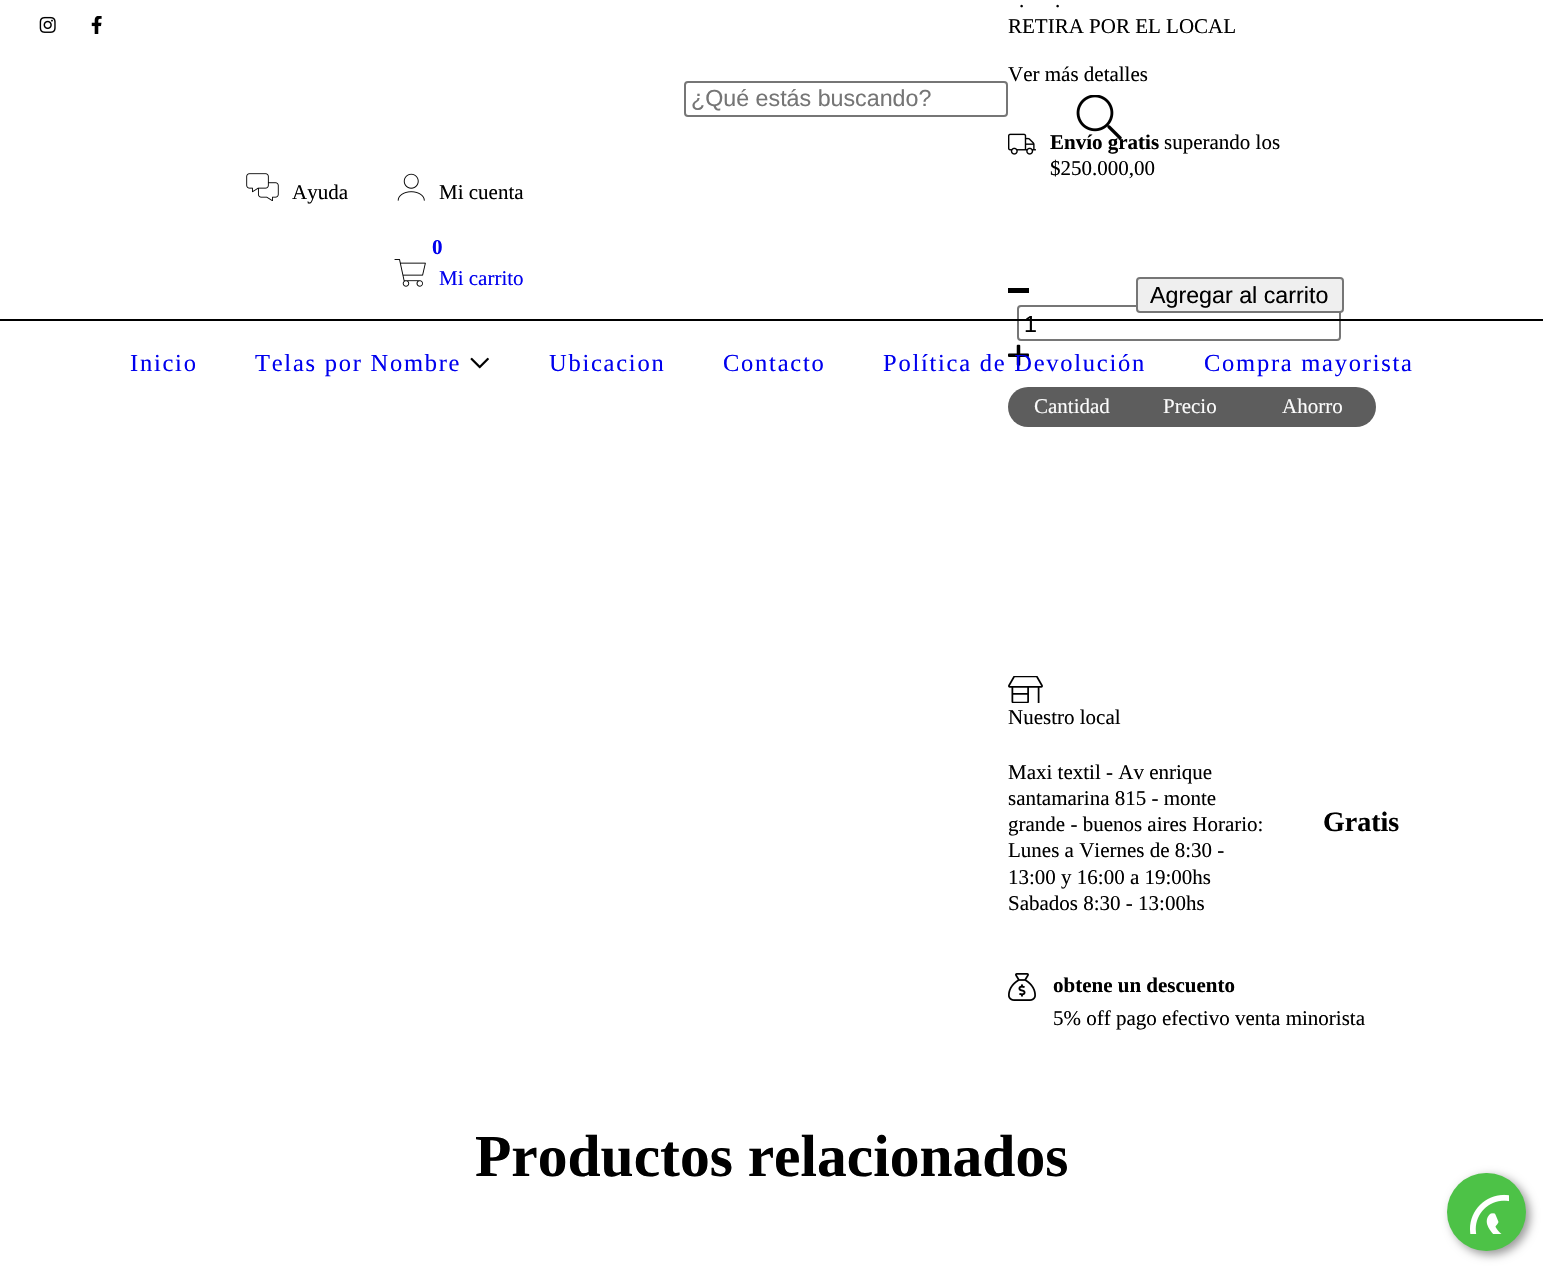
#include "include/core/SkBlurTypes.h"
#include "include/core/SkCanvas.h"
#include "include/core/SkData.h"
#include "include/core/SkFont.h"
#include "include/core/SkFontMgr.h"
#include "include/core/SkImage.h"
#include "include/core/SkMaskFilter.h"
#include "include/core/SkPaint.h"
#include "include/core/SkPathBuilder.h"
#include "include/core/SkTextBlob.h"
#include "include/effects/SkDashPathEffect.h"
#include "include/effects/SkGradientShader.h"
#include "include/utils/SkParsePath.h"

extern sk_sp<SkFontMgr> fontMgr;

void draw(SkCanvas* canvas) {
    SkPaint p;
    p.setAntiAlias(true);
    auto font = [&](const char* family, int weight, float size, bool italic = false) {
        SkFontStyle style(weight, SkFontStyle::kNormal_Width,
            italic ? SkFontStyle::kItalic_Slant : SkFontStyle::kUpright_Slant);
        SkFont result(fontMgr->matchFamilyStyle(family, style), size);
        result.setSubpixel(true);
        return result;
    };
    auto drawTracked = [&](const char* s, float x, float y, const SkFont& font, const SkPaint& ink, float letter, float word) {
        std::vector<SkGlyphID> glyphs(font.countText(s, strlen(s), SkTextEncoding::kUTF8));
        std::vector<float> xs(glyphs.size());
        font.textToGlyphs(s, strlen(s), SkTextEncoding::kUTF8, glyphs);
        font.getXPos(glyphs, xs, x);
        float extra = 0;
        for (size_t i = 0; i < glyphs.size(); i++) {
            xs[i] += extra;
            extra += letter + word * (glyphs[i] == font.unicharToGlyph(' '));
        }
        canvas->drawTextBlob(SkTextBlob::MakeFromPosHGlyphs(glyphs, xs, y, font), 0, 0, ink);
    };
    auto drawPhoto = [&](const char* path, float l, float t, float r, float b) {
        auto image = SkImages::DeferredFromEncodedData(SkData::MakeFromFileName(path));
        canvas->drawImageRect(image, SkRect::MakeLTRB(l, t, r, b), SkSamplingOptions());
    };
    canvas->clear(0xFFFFFFFF);
    auto font1 = font("Liberation Serif", 400, 21);
    p.setColor(0xFF000000);
    {
        const struct { const char* s; float x, y; } items[] = {
            {".", 1019, 7},
            {".", 1055, 7},
            {"RETIRA POR EL LOCAL", 1008, 33},
            {"Ver más detalles", 1008, 81},
        };
        for (auto [s, x, y] : items) {
            canvas->drawString(s, x, y, font1, p);
        }
    }
    drawPhoto("media/1.png", 1008, 133, 1036, 155);
    auto font2 = font("Liberation Serif", 700, 21);
    canvas->drawString("Envío gratis", 1050, 149, font2, p);
    canvas->drawString("superando los", 1164, 149, font1, p);
    canvas->drawString("$250.000,00", 1050, 175, font1, p);
    p.setStyle(SkPaint::kStroke_Style);
    p.setStrokeWidth(2);
    p.setColor(0xFF767676);
    canvas->drawRoundRect(SkRect::MakeLTRB(1018, 306, 1340, 340), 3, 3, p);
    p.setStyle(SkPaint::kFill_Style);
    p.setColor(0xFFEFEFEF);
    canvas->drawRoundRect(SkRect::MakeLTRB(1137, 278, 1343, 312), 3, 3, p);
    p.setStyle(SkPaint::kStroke_Style);
    p.setColor(0xFF767676);
    canvas->drawRoundRect(SkRect::MakeLTRB(1137, 278, 1343, 312), 3, 3, p);
    auto font3 = font("Liberation Sans", 400, 23.25f);
    p.setStyle(SkPaint::kFill_Style);
    p.setColor(0xFF000000);
    canvas->drawString("Agregar al carrito", 1150, 303, font3, p);
    canvas->drawRect(SkRect::MakeLTRB(1008, 288, 1029, 293), p);
    canvas->drawString("1", 1024, 332, font3, p);
    drawPhoto("media/2.png", 1008, 344, 1029, 366);
    p.setColor(0xFF5D5D5D);
    canvas->drawRoundRect(SkRect::MakeLTRB(1008, 387, 1376, 427), 20, 20, p);
    p.setColor(0xFFFBFBFB);
    {
        const struct { const char* s; float x, y; } items[] = {
            {"Cantidad", 1034, 413},
            {"Precio", 1163, 413},
            {"Ahorro", 1282, 413},
        };
        for (auto [s, x, y] : items) {
            canvas->drawString(s, x, y, font1, p);
        }
    }
    drawPhoto("media/3.png", 1008, 676, 1043, 703);
    p.setColor(0xFF000000);
    {
        const struct { const char* s; float x, y; } items[] = {
            {"Nuestro local", 1008, 724},
            {"Maxi textil - Av enrique", 1008, 779},
            {"santamarina 815 - monte", 1008, 805},
            {"grande - buenos aires Horario:", 1008, 831},
            {"Lunes a Viernes de 8:30 -", 1008, 857},
            {"13:00 y 16:00 a 19:00hs", 1008, 884},
            {"Sabados 8:30 - 13:00hs", 1008, 910},
        };
        for (auto [s, x, y] : items) {
            canvas->drawString(s, x, y, font1, p);
        }
    }
    auto font4 = font("Liberation Serif", 700, 28);
    canvas->drawString("Gratis", 1323, 831, font4, p);
    drawPhoto("media/4.png", 1008, 973, 1036, 1001);
    canvas->drawString("obtene un descuento", 1053, 992, font2, p);
    canvas->drawString("5% off pago efectivo venta minorista", 1053, 1025, font1, p);
    auto font5 = font("Liberation Serif", 700, 59.5f);
    canvas->drawString("Productos relacionados", 475, 1176, font5, p);
    drawPhoto("media/5.png", 39, 16, 56, 33);
    drawPhoto("media/6.png", 91, 16, 102, 34);
    p.setStyle(SkPaint::kStroke_Style);
    p.setColor(0xFF767676);
    canvas->drawRoundRect(SkRect::MakeLTRB(685, 82, 1007, 116), 3, 3, p);
    p.setStyle(SkPaint::kFill_Style);
    p.setColor(0xFF757575);
    canvas->drawString("¿Qué estás buscando?", 691, 106, font3, p);
    drawPhoto("media/7.png", 1076, 95, 1122, 140);
    drawPhoto("media/8.png", 246, 173, 279, 201);
    p.setColor(0xFF000000);
    canvas->drawString("Ayuda", 292, 199, font1, p);
    drawPhoto("media/9.png", 397, 173, 425, 201);
    canvas->drawString("Mi cuenta", 439, 199, font1, p);
    p.setColor(0xFF0000EE);
    canvas->drawString("0", 432, 254, font2, p);
    drawPhoto("media/10.png", 394, 259, 426, 287);
    canvas->drawString("Mi carrito", 439, 285, font1, p);
    p.setColor(0xFF000000);
    canvas->drawRect(SkRect::MakeLTRB(0, 319, 1543, 321), p);
    auto font6 = font("Liberation Serif", 400, 24.5f);
    p.setColor(0xFF0000EE);
    drawTracked("Inicio", 130, 371, font6, p, 1.75f, 0);
    drawTracked("Telas por Nombre", 255, 371, font6, p, 1.75f, 0);
    drawPhoto("media/11.png", 470, 357, 489, 369);
    {
        const struct { const char* s; float x, y; } items[] = {
            {"Ubicacion", 549, 371},
            {"Contacto", 723, 371},
            {"Política de Devolución", 883, 371},
            {"Compra mayorista", 1204, 371},
        };
        for (auto [s, x, y] : items) {
            drawTracked(s, x, y, font6, p, 1.75f, 0);
        }
    }
    p.setColor(0x66000000);
    p.setMaskFilter(SkMaskFilter::MakeBlur(kNormal_SkBlurStyle, 5));
    canvas->drawRoundRect(SkRect::MakeLTRB(1451, 1176, 1530, 1255), 39.5f, 39.5f, p);
    p.setMaskFilter(nullptr);
    p.setColor(0xFF4DC247);
    canvas->drawRoundRect(SkRect::MakeLTRB(1447, 1173, 1526, 1251), 39, 39, p);
    drawPhoto("media/12.png", 1470, 1194, 1509, 1234);
}
